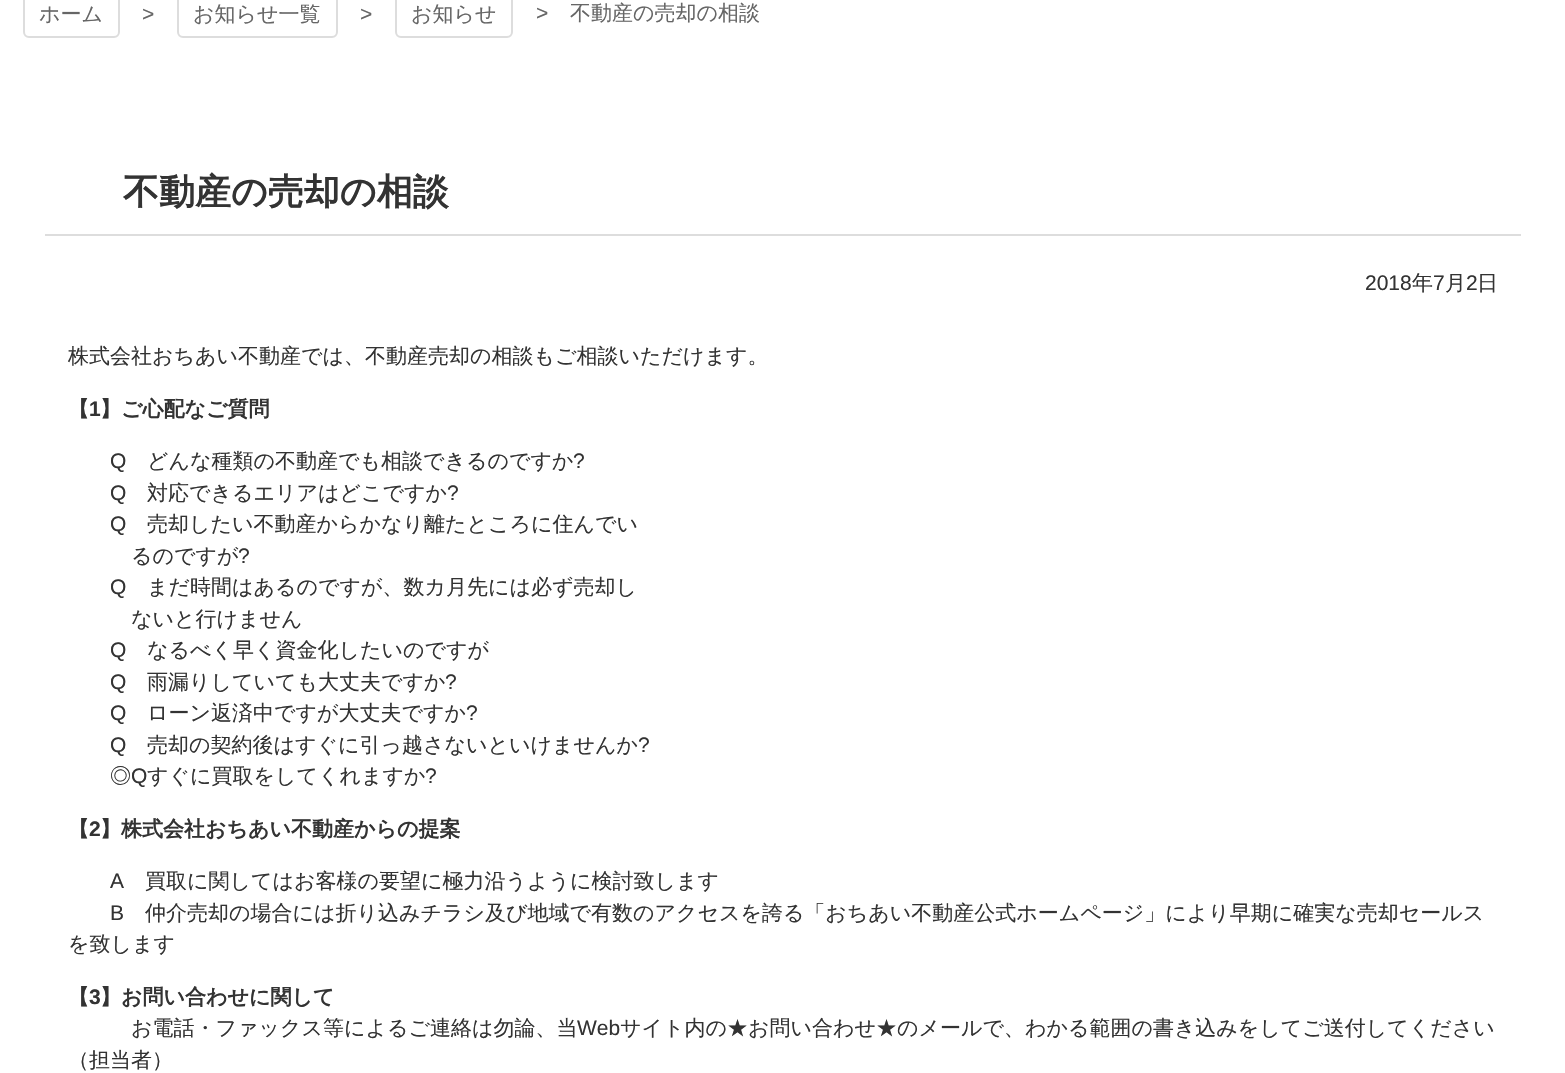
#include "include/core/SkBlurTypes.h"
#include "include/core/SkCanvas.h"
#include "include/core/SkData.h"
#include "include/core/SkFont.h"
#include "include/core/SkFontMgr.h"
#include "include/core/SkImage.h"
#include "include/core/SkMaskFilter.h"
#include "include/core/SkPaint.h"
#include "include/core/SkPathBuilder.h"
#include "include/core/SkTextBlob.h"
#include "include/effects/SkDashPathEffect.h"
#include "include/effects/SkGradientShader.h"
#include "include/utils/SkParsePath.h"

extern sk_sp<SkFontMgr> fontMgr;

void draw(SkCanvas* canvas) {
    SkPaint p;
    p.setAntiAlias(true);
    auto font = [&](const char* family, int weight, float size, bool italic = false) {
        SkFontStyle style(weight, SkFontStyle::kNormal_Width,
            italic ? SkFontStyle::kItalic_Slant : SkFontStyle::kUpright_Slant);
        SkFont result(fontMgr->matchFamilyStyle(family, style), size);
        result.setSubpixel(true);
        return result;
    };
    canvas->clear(0xFFFFFFFF);
    p.setStyle(SkPaint::kStroke_Style);
    p.setStrokeWidth(2);
    p.setColor(0xFFDDDDDD);
    canvas->drawRoundRect(SkRect::MakeLTRB(24, -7, 119, 37), 5, 5, p);
    auto font1 = font("WenQuanYi Zen Hei", 500, 21);
    p.setStyle(SkPaint::kFill_Style);
    p.setColor(0xFF666666);
    canvas->drawString("ホーム", 39, 21, font1, p);
    auto font2 = font("Liberation Sans", 400, 21);
    canvas->drawString(">", 142, 21, font2, p);
    p.setStyle(SkPaint::kStroke_Style);
    p.setColor(0xFFDDDDDD);
    canvas->drawRoundRect(SkRect::MakeLTRB(178, -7, 337, 37), 5, 5, p);
    p.setStyle(SkPaint::kFill_Style);
    p.setColor(0xFF666666);
    canvas->drawString("お知らせ一覧", 193, 21, font1, p);
    canvas->drawString(">", 360, 21, font2, p);
    p.setStyle(SkPaint::kStroke_Style);
    p.setColor(0xFFDDDDDD);
    canvas->drawRoundRect(SkRect::MakeLTRB(396, -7, 512, 37), 5, 5, p);
    p.setStyle(SkPaint::kFill_Style);
    p.setColor(0xFF666666);
    canvas->drawString("お知らせ", 411, 21, font1, p);
    canvas->drawString(">", 536, 20, font2, p);
    canvas->drawString("不動産の売却の相談", 570, 20, font1, p);
    p.setColor(0xFFDDDDDD);
    canvas->drawRect(SkRect::MakeLTRB(45, 234, 1521, 236), p);
    auto font3 = font("WenQuanYi Zen Hei", 700, 36);
    p.setColor(0xFF333333);
    canvas->drawString("不動産の売却の相談", 123, 204, font3, p);
    canvas->drawString("2018", 1365, 290, font2, p);
    canvas->drawString("年", 1412, 290, font1, p);
    canvas->drawString("7", 1433, 290, font2, p);
    canvas->drawString("月", 1445, 290, font1, p);
    canvas->drawString("2", 1466, 290, font2, p);
    canvas->drawString("日", 1477, 290, font1, p);
    canvas->drawString("株式会社おちあい不動産では、不動産売却の相談もご相談いただけます。", 68, 363, font1, p);
    auto font4 = font("WenQuanYi Zen Hei", 700, 21);
    canvas->drawString("【", 68, 416, font4, p);
    auto font5 = font("Liberation Sans", 700, 21);
    canvas->drawString("1", 89, 416, font5, p);
    canvas->drawString("】ご心配なご質問", 100, 416, font4, p);
    canvas->drawString("Q", 110, 468, font2, p);
    canvas->drawString("どんな種類の不動産でも相談できるのですか", 147, 468, font1, p);
    canvas->drawString("?", 573, 468, font2, p);
    canvas->drawString("Q", 110, 500, font2, p);
    canvas->drawString("対応できるエリアはどこですか", 147, 500, font1, p);
    canvas->drawString("?", 447, 500, font2, p);
    canvas->drawString("Q", 110, 531, font2, p);
    canvas->drawString("売却したい不動産からかなり離たところに住んでい", 147, 531, font1, p);
    canvas->drawString("るのですが", 131, 563, font1, p);
    canvas->drawString("?", 238, 563, font2, p);
    canvas->drawString("Q", 110, 594, font2, p);
    canvas->drawString("まだ時間はあるのですが、数カ月先には必ず売却し", 147, 594, font1, p);
    canvas->drawString("ないと行けません", 131, 626, font1, p);
    canvas->drawString("Q", 110, 657, font2, p);
    canvas->drawString("なるべく早く資金化したいのですが", 147, 657, font1, p);
    canvas->drawString("Q", 110, 689, font2, p);
    canvas->drawString("雨漏りしていても大丈夫ですか", 147, 689, font1, p);
    canvas->drawString("?", 445, 689, font2, p);
    canvas->drawString("Q", 110, 720, font2, p);
    canvas->drawString("ローン返済中ですが大丈夫ですか", 147, 720, font1, p);
    canvas->drawString("?", 466, 720, font2, p);
    canvas->drawString("Q", 110, 752, font2, p);
    canvas->drawString("売却の契約後はすぐに引っ越さないといけませんか", 147, 752, font1, p);
    canvas->drawString("?", 638, 752, font2, p);
    canvas->drawString("◎", 110, 783, font1, p);
    canvas->drawString("Q", 131, 783, font2, p);
    canvas->drawString("すぐに買取をしてくれますか", 147, 783, font1, p);
    canvas->drawString("?", 425, 783, font2, p);
    canvas->drawString("【", 68, 836, font4, p);
    canvas->drawString("2", 89, 836, font5, p);
    canvas->drawString("】株式会社おちあい不動産からの提案", 100, 836, font4, p);
    canvas->drawString("A", 110, 888, font2, p);
    canvas->drawString("買取に関してはお客様の要望に極力沿うように検討致します", 145, 888, font1, p);
    canvas->drawString("B", 110, 920, font2, p);
    canvas->drawString("仲介売却の場合には折り込みチラシ及び地域で有数のアクセスを誇る「おちあい不動産公式ホームページ」により早期に確実な売却セールス", 145, 920, font1, p);
    canvas->drawString("を致します", 68, 951, font1, p);
    canvas->drawString("【", 68, 1004, font4, p);
    canvas->drawString("3", 89, 1004, font5, p);
    canvas->drawString("】お問い合わせに関して", 100, 1004, font4, p);
    canvas->drawString("お電話・ファックス等によるご連絡は勿論、当", 131, 1035, font1, p);
    canvas->drawString("Web", 577, 1035, font2, p);
    canvas->drawString("サイト内の★お問い合わせ★のメールで、わかる範囲の書き込みをしてご送付してください", 620, 1035, font1, p);
    canvas->drawString("（担当者）", 68, 1067, font1, p);
}
